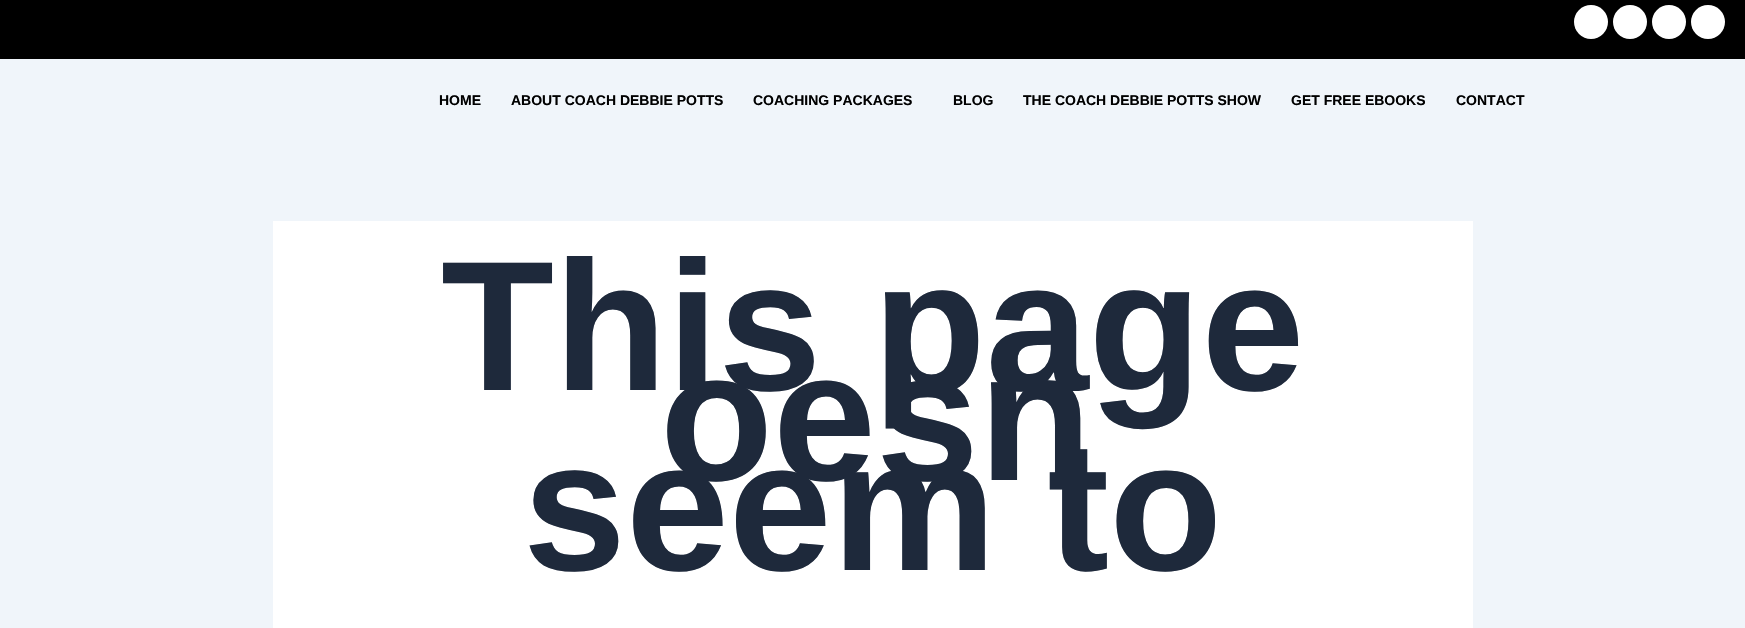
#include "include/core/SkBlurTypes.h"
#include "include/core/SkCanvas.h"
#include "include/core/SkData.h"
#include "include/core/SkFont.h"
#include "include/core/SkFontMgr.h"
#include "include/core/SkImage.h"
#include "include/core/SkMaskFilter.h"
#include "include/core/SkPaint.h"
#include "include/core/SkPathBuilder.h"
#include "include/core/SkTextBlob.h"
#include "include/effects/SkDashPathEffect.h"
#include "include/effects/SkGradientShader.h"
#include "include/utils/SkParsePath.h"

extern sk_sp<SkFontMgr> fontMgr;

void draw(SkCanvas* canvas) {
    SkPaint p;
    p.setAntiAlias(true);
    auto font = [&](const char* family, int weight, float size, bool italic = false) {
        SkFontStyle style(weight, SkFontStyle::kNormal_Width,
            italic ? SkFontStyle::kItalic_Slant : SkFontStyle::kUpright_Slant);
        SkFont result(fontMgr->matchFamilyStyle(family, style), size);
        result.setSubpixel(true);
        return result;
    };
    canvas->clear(0xFFF0F5FA);
    p.setColor(0xFF000000);
    canvas->drawRect(SkRect::MakeLTRB(0, 0, 1745, 59), p);
    p.setColor(0xFFFFFFFF);
    canvas->drawCircle(1591, 22, 17, p);
    canvas->drawCircle(1630, 22, 17, p);
    canvas->drawCircle(1669, 22, 17, p);
    canvas->drawCircle(1708, 22, 17, p);
    auto font1 = font("Liberation Sans", 700, 14);
    p.setColor(0xFF000000);
    {
        const struct { const char* s; float x, y; } items[] = {
            {"HOME", 439, 105},
            {"ABOUT COACH DEBBIE POTTS", 511, 105},
            {"COACHING PACKAGES", 753, 105},
            {"BLOG", 953, 105},
            {"THE COACH DEBBIE POTTS SHOW", 1023, 105},
            {"GET FREE EBOOKS", 1291, 105},
            {"CONTACT", 1456, 105},
        };
        for (auto [s, x, y] : items) {
            canvas->drawString(s, x, y, font1, p);
        }
    }
    p.setColor(0xFFFFFFFF);
    canvas->drawRect(SkRect::MakeLTRB(273, 221, 1473, 628), p);
    auto font2 = font("Liberation Sans", 700, 185);
    p.setColor(0xFF1E293B);
    {
        const struct { const char* s; float x, y; } items[] = {
            {"This page", 441, 390},
            {"oesn", 660, 480},
            {"seem to", 523, 570},
        };
        for (auto [s, x, y] : items) {
            canvas->drawString(s, x, y, font2, p);
        }
    }
}
